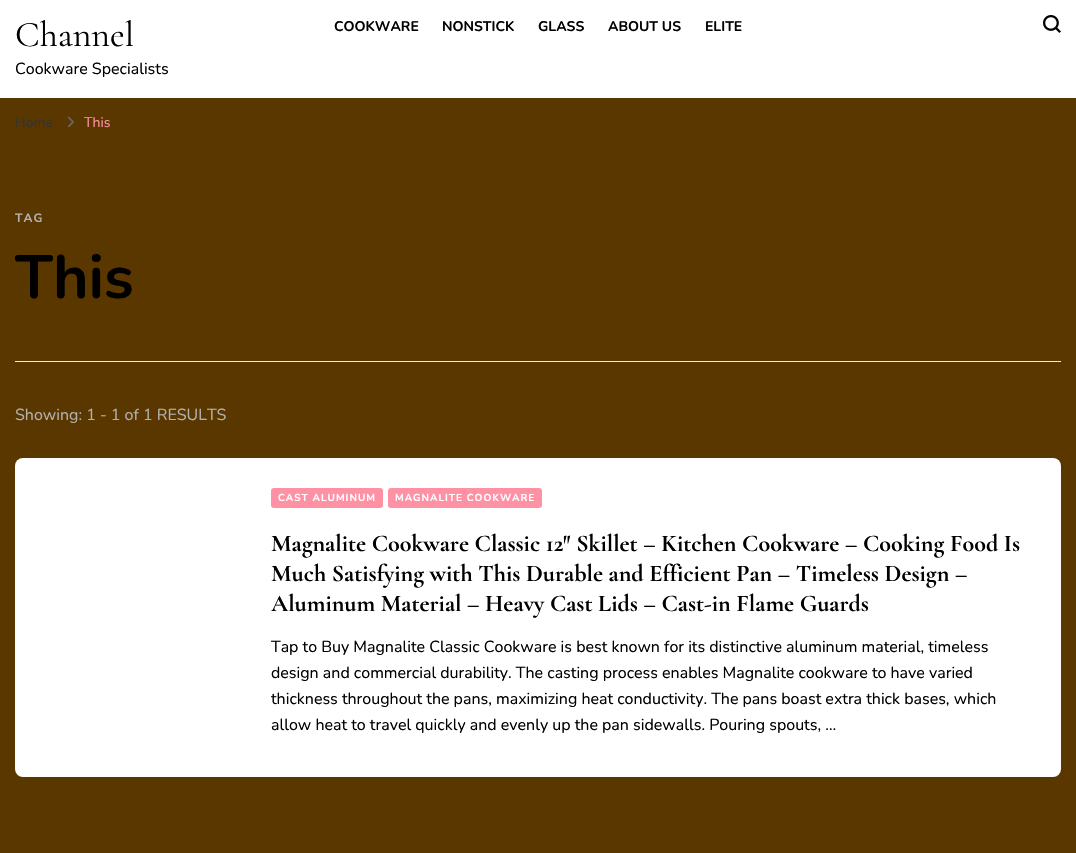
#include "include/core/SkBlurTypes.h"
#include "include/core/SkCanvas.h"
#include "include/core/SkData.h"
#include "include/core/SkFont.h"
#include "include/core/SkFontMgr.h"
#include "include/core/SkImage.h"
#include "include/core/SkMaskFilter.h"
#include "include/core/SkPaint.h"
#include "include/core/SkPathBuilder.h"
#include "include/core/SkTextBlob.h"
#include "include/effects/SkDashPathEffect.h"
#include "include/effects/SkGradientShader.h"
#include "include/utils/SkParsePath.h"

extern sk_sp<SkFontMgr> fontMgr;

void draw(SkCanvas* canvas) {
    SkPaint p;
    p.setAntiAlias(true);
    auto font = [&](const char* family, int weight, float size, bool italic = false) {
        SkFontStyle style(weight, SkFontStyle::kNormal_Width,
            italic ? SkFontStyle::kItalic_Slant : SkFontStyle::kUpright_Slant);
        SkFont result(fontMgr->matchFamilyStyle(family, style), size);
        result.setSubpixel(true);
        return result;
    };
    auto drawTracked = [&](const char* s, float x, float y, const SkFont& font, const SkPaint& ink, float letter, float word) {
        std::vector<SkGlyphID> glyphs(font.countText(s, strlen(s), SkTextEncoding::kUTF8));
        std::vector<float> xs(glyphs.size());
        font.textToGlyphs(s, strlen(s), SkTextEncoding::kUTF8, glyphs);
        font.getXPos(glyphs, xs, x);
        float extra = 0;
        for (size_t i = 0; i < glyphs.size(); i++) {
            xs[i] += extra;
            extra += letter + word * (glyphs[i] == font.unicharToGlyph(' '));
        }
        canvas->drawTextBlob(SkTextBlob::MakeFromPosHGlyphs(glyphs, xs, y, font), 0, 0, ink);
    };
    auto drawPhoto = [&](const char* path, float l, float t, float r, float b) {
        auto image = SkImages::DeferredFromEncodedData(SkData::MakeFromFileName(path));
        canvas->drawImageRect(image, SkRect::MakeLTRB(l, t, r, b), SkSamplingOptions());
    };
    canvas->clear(0xFF5B3700);
    p.setColor(0xFFFFFFFF);
    canvas->drawRect(SkRect::MakeLTRB(0, 0, 1076, 98), p);
    auto font1 = font("Cormorant Garamond", 400, 36);
    p.setColor(0xFF000000);
    canvas->drawString("Channel", 15, 46, font1, p);
    auto font2 = font("Nunito", 400, 16);
    canvas->drawString("Cookware Specialists", 15, 74, font2, p);
    auto font3 = font("Nunito", 700, 14);
    {
        const struct { const char* s; float x, y; } items[] = {
            {"COOKWARE", 334, 31},
            {"NONSTICK", 442, 31},
            {"GLASS", 538, 31},
            {"ABOUT US", 608, 31},
            {"ELITE", 705, 31},
        };
        for (auto [s, x, y] : items) {
            canvas->drawString(s, x, y, font3, p);
        }
    }
    drawPhoto("media/1.png", 1043, 15, 1061, 33);
    auto font4 = font("Nunito", 400, 14);
    p.setColor(0xFF333333);
    canvas->drawString("Home", 15, 127, font4, p);
    drawPhoto("media/2.png", 68, 116, 74, 128);
    p.setColor(0xFFFF91A4);
    canvas->drawString("This", 84, 127, font4, p);
    p.setColor(0xFFEBEBEB);
    canvas->drawRect(SkRect::MakeLTRB(15, 361, 1061, 362), p);
    auto font5 = font("Nunito", 700, 12);
    p.setColor(0xFFB1B1B2);
    drawTracked("TAG", 15, 222, font5, p, 1, 0);
    auto font6 = font("Nunito", 700, 61);
    p.setColor(0xFF000000);
    canvas->drawString("This", 15, 298, font6, p);
    p.setColor(0xFFB1B1B2);
    canvas->drawString("Showing: 1 - 1 of 1 RESULTS", 15, 420, font2, p);
    p.setColor(0xFFFFFFFF);
    canvas->drawRoundRect(SkRect::MakeLTRB(15, 458, 1061, 777), 8, 8, p);
    p.setColor(0xFFFF91A4);
    canvas->drawRoundRect(SkRect::MakeLTRB(271, 488, 383, 508), 3, 3, p);
    auto font7 = font("Nunito", 700, 10);
    p.setColor(0xFFFFFFFF);
    drawTracked("CAST ALUMINUM", 278, 501, font7, p, 1, 0);
    p.setColor(0xFFFF91A4);
    canvas->drawRoundRect(SkRect::MakeLTRB(388, 488, 542, 508), 3, 3, p);
    p.setColor(0xFFFFFFFF);
    drawTracked("MAGNALITE COOKWARE", 395, 501, font7, p, 1, 0);
    auto font8 = font("Cormorant Garamond", 700, 24);
    p.setColor(0xFF000000);
    {
        const struct { const char* s; float x, y; } items[] = {
            {"Magnalite Cookware Classic 12″ Skillet – Kitchen Cookware – Cooking Food Is", 271, 551},
            {"Much Satisfying with This Durable and Efficient Pan – Timeless Design –", 271, 581},
            {"Aluminum Material – Heavy Cast Lids – Cast-in Flame Guards", 271, 611},
        };
        for (auto [s, x, y] : items) {
            canvas->drawString(s, x, y, font8, p);
        }
    }
    {
        const struct { const char* s; float x, y; } items[] = {
            {"Tap to Buy Magnalite Classic Cookware is best known for its distinctive aluminum material, timeless", 271, 652},
            {"design and commercial durability. The casting process enables Magnalite cookware to have varied", 271, 678},
            {"thickness throughout the pans, maximizing heat conductivity. The pans boast extra thick bases, which", 271, 704},
            {"allow heat to travel quickly and evenly up the pan sidewalls. Pouring spouts, …", 271, 730},
        };
        for (auto [s, x, y] : items) {
            canvas->drawString(s, x, y, font2, p);
        }
    }
}
